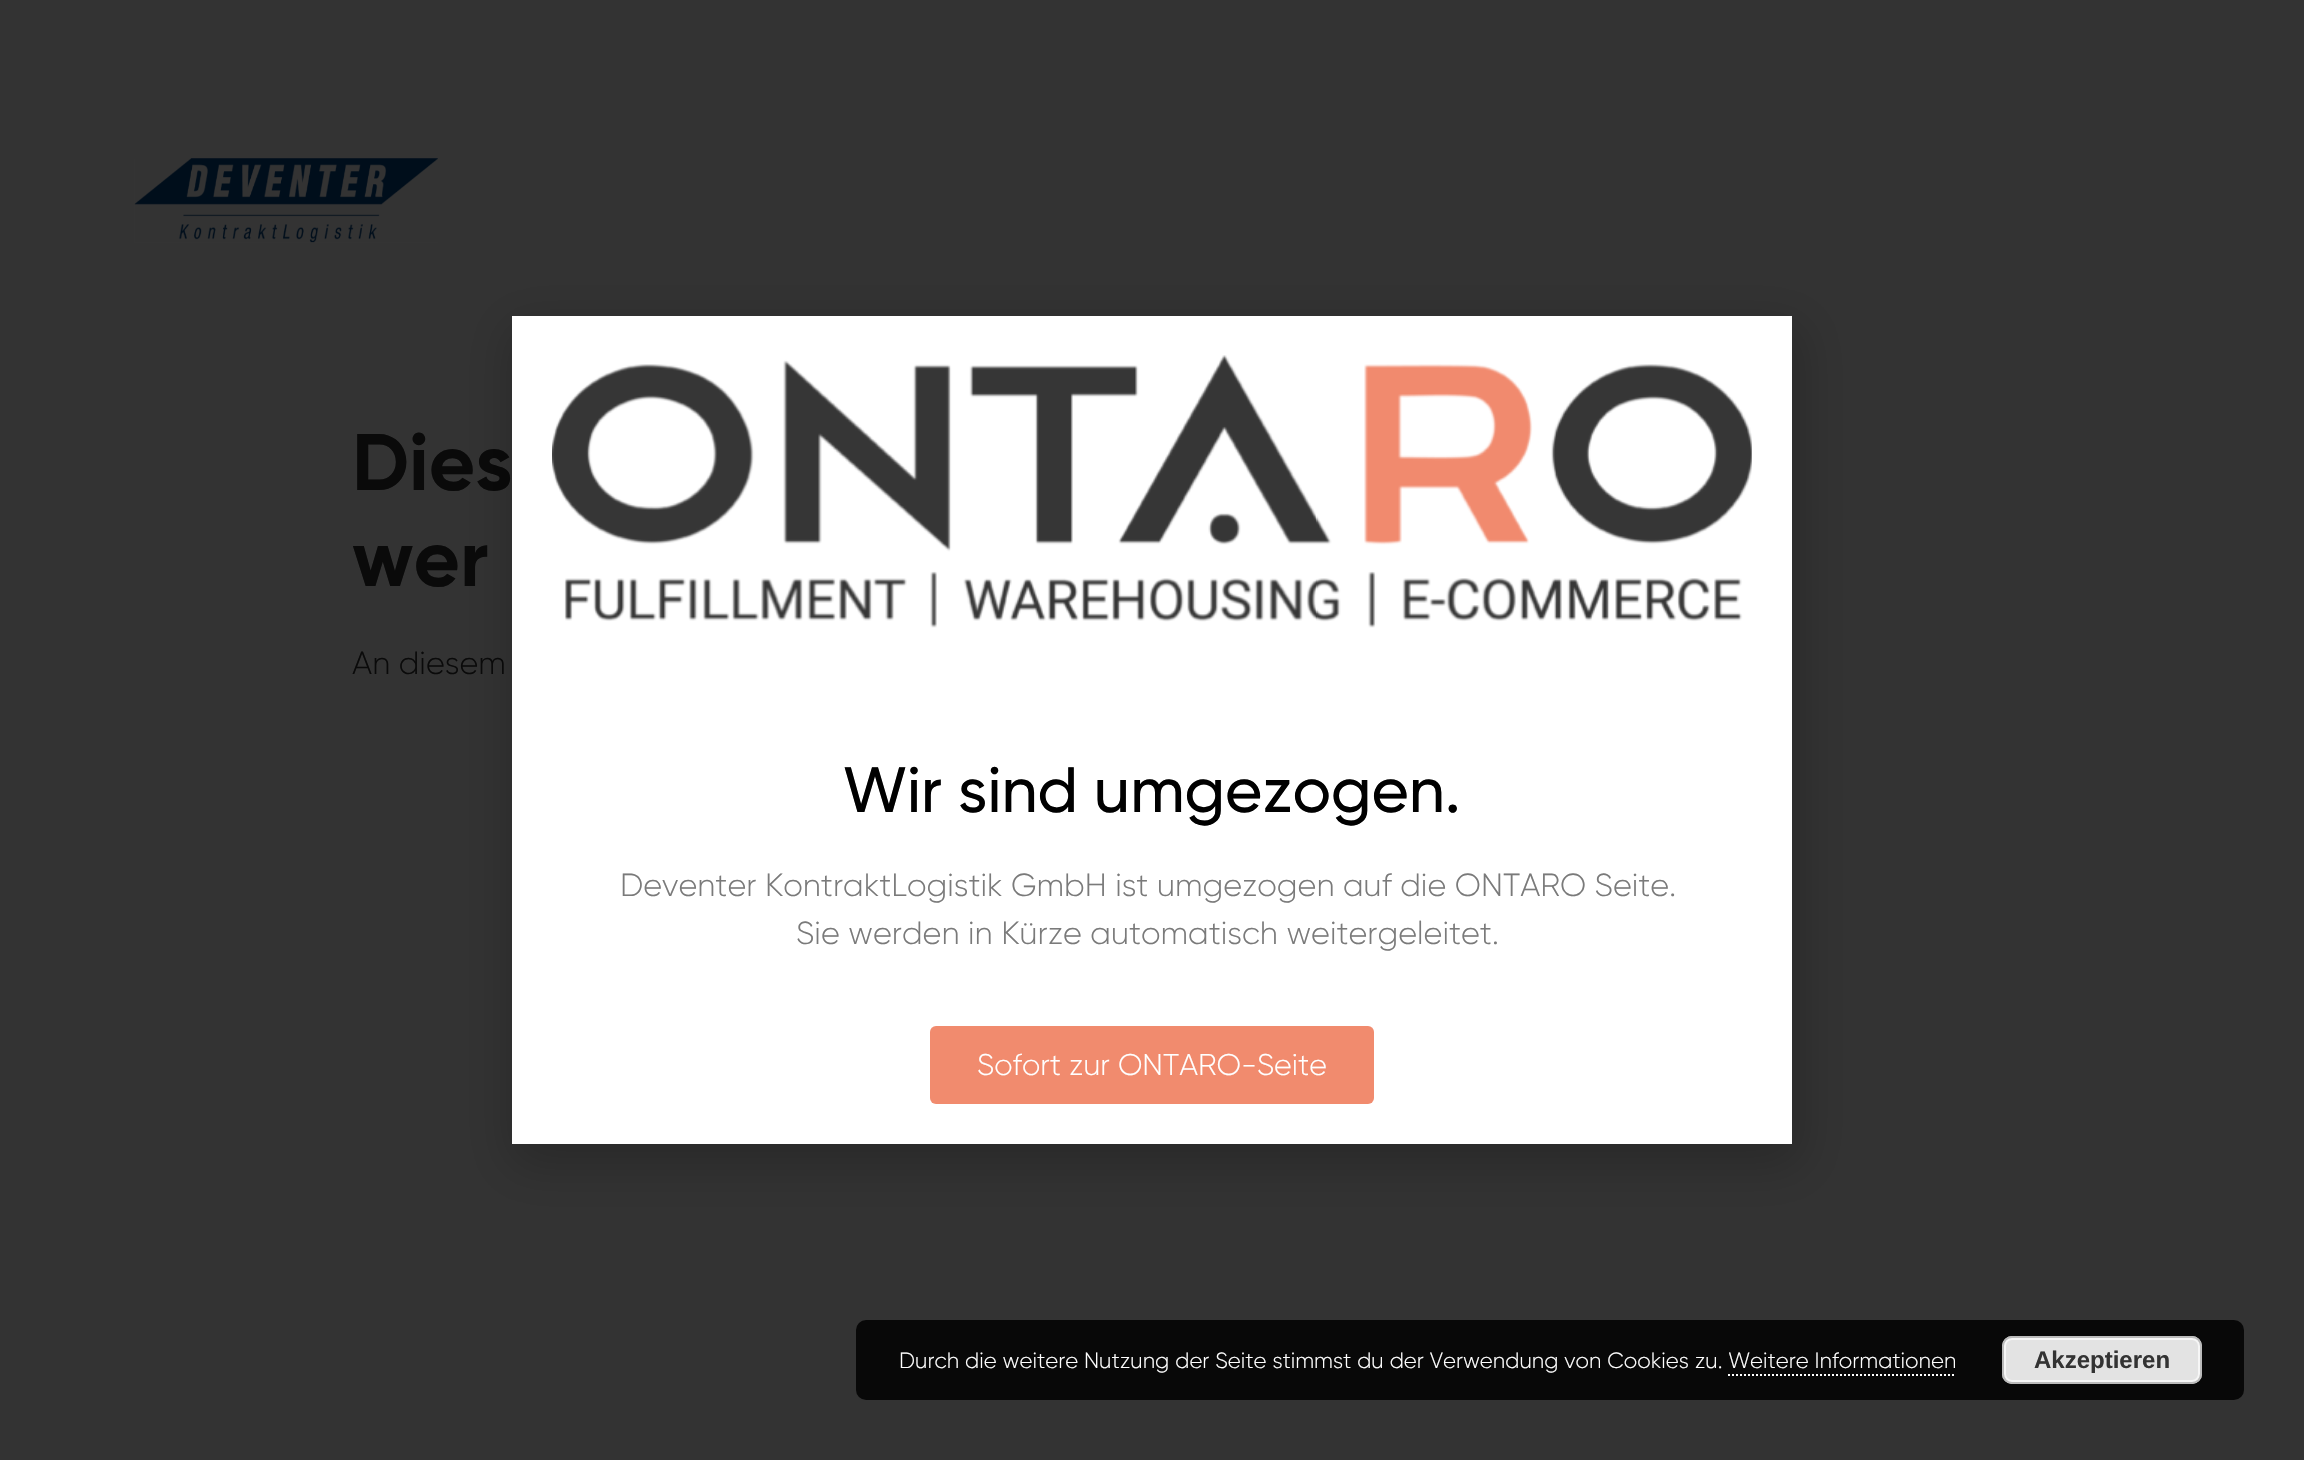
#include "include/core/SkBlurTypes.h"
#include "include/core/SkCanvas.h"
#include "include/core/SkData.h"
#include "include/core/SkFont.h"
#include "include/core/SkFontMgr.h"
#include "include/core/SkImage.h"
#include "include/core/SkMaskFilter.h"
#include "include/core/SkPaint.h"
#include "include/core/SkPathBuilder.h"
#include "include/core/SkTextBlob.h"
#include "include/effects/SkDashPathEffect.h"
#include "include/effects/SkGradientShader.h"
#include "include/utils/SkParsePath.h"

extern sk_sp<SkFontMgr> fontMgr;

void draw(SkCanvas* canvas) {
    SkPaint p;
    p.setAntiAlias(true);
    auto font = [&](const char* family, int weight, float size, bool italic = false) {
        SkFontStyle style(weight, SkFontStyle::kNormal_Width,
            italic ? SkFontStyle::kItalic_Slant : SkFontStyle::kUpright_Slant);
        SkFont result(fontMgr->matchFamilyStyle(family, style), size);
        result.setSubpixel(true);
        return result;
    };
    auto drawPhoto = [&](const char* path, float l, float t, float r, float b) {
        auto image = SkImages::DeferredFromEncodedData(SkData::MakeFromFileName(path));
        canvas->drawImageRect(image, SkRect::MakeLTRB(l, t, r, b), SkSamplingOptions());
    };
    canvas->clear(0xFF333333);
    drawPhoto("media/1.png", 134, 158, 438, 243);
    auto font1 = font("Gilroy", 700, 80);
    p.setColor(0xFF0A0A0A);
    canvas->drawString("Dies", 352, 490, font1, p);
    canvas->drawString("wer", 352, 586, font1, p);
    auto font2 = font("Gilroy", 300, 32);
    canvas->drawString("An diesem", 352, 674, font2, p);
    p.setColor(0x33000000);
    p.setMaskFilter(SkMaskFilter::MakeBlur(kNormal_SkBlurStyle, 23));
    canvas->drawRect(SkRect::MakeLTRB(510, 326, 1802, 1166), p);
    p.setMaskFilter(nullptr);
    p.setColor(0xFFFFFFFF);
    canvas->drawRect(SkRect::MakeLTRB(512, 316, 1792, 1144), p);
    drawPhoto("media/2.png", 552, 355, 1752, 628);
    auto font3 = font("Gilroy", 500, 64);
    p.setColor(0xFF000000);
    canvas->drawString("Wir sind umgezogen.", 843, 812, font3, p);
    p.setColor(0xFF7A7A7A);
    canvas->drawString("Deventer KontraktLogistik GmbH ist umgezogen auf die ONTARO Seite.", 620, 896, font2, p);
    canvas->drawString("Sie werden in Kürze automatisch weitergeleitet.", 796, 944, font2, p);
    p.setColor(0xFFF18B6E);
    canvas->drawRoundRect(SkRect::MakeLTRB(930, 1026, 1374, 1104), 6, 6, p);
    auto font4 = font("Gilroy", 300, 30);
    p.setColor(0xFFFFFFFF);
    canvas->drawString("Sofort zur ONTARO-Seite", 977, 1075, font4, p);
    p.setColor(0xFF080808);
    canvas->drawRoundRect(SkRect::MakeLTRB(856, 1320, 2244, 1400), 10, 10, p);
    auto font5 = font("Gilroy", 300, 22);
    p.setColor(0xFFFFFFFF);
    canvas->drawString("Durch die weitere Nutzung der Seite stimmst du der Verwendung von Cookies zu. Weitere Informationen", 899, 1368, font5, p);
    p.setColor(0xFFE3E3E3);
    canvas->drawRoundRect(SkRect::MakeLTRB(2002, 1336, 2202, 1384), 10, 10, p);
    p.setStyle(SkPaint::kStroke_Style);
    p.setStrokeWidth(2);
    p.setColor(0xFFF6F6F6);
    canvas->drawRoundRect(SkRect::MakeLTRB(2005, 1339, 2199, 1381), 7, 7, p);
    p.setColor(0xFFBBBBBB);
    canvas->drawRoundRect(SkRect::MakeLTRB(2003, 1337, 2201, 1383), 9, 9, p);
    auto font6 = font("Liberation Sans", 700, 24);
    p.setStyle(SkPaint::kFill_Style);
    p.setColor(0xFF333333);
    canvas->drawString("Akzeptieren", 2034, 1368, font6, p);
    p.setStyle(SkPaint::kStroke_Style);
    p.setColor(0xFFFFFFFF);
    p.setPathEffect(SkDashPathEffect::Make({{2, 2}}, 0));
    canvas->drawPath(SkPathBuilder().moveTo(1728, 1375).lineTo(1956, 1375).detach(), p);
    p.setPathEffect(nullptr);
}
